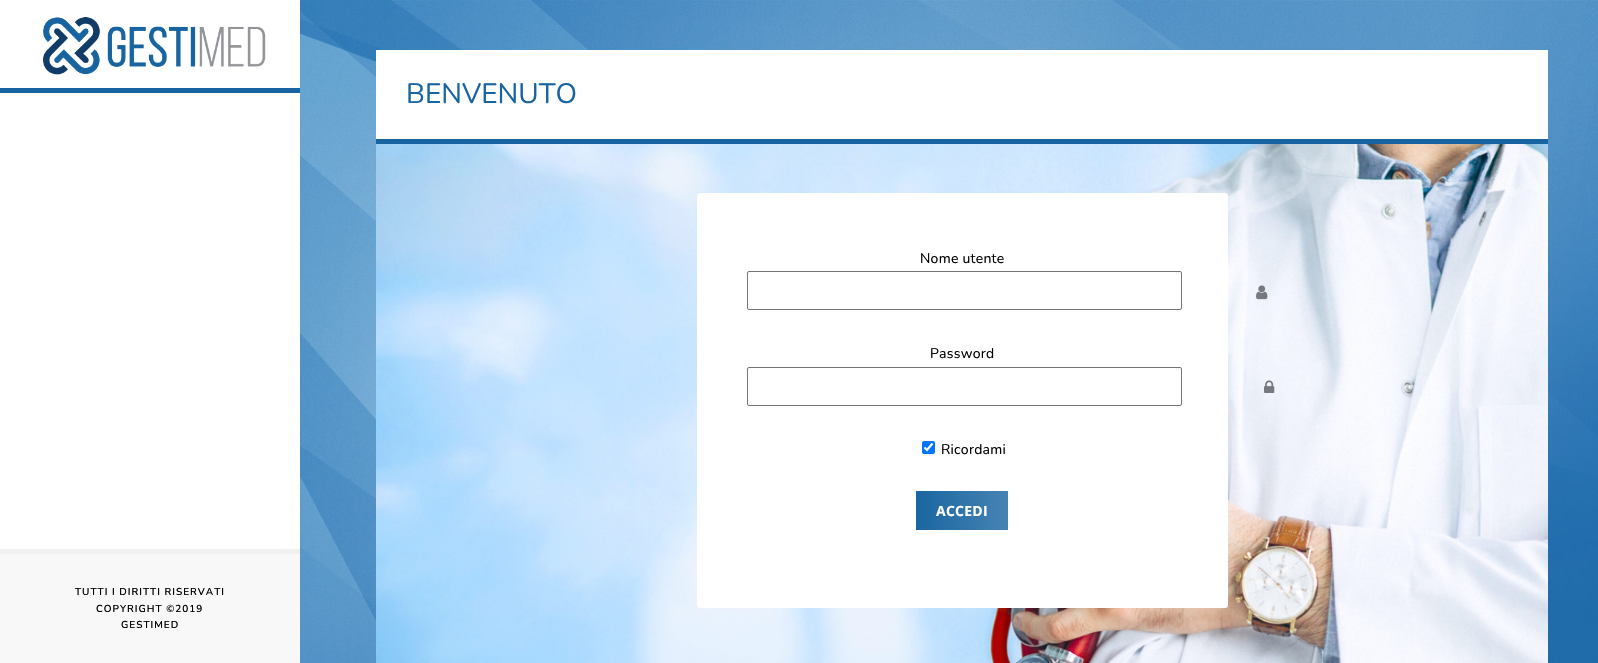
#include "include/core/SkBlurTypes.h"
#include "include/core/SkCanvas.h"
#include "include/core/SkData.h"
#include "include/core/SkFont.h"
#include "include/core/SkFontMgr.h"
#include "include/core/SkImage.h"
#include "include/core/SkMaskFilter.h"
#include "include/core/SkPaint.h"
#include "include/core/SkPathBuilder.h"
#include "include/core/SkTextBlob.h"
#include "include/effects/SkDashPathEffect.h"
#include "include/effects/SkGradientShader.h"
#include "include/utils/SkParsePath.h"

extern sk_sp<SkFontMgr> fontMgr;

void draw(SkCanvas* canvas) {
    SkPaint p;
    p.setAntiAlias(true);
    auto font = [&](const char* family, int weight, float size, bool italic = false) {
        SkFontStyle style(weight, SkFontStyle::kNormal_Width,
            italic ? SkFontStyle::kItalic_Slant : SkFontStyle::kUpright_Slant);
        SkFont result(fontMgr->matchFamilyStyle(family, style), size);
        result.setSubpixel(true);
        return result;
    };
    auto drawTracked = [&](const char* s, float x, float y, const SkFont& font, const SkPaint& ink, float letter, float word) {
        std::vector<SkGlyphID> glyphs(font.countText(s, strlen(s), SkTextEncoding::kUTF8));
        std::vector<float> xs(glyphs.size());
        font.textToGlyphs(s, strlen(s), SkTextEncoding::kUTF8, glyphs);
        font.getXPos(glyphs, xs, x);
        float extra = 0;
        for (size_t i = 0; i < glyphs.size(); i++) {
            xs[i] += extra;
            extra += letter + word * (glyphs[i] == font.unicharToGlyph(' '));
        }
        canvas->drawTextBlob(SkTextBlob::MakeFromPosHGlyphs(glyphs, xs, y, font), 0, 0, ink);
    };
    auto drawPhoto = [&](const char* path, float l, float t, float r, float b) {
        auto image = SkImages::DeferredFromEncodedData(SkData::MakeFromFileName(path));
        canvas->drawImageRect(image, SkRect::MakeLTRB(l, t, r, b), SkSamplingOptions());
    };
    canvas->clear(0xFFFFFFFF);
    drawPhoto("media/1.png", 300, 0, 1598, 663);
    p.setColor(0xFFFFFFFF);
    canvas->drawRect(SkRect::MakeLTRB(376, 50, 1548, 139), p);
    p.setColor(0xFF1864A0);
    canvas->drawRect(SkRect::MakeLTRB(376, 139, 1548, 144), p);
    auto font1 = font("Nunito", 400, 28);
    canvas->drawString("BENVENUTO", 406, 103, font1, p);
    drawPhoto("media/2.png", 376, 144, 1548, 663);
    p.setColor(0xFFFFFFFF);
    canvas->drawRoundRect(SkRect::MakeLTRB(697, 193, 1228, 608), 3, 3, p);
    auto font2 = font("Nunito", 400, 14);
    p.setColor(0xFF000000);
    drawTracked("Nome utente", 920, 263, font2, p, 0.25f, 0);
    p.setStyle(SkPaint::kStroke_Style);
    p.setStrokeWidth(1);
    p.setColor(0xFF767676);
    canvas->drawRoundRect(SkRect::MakeLTRB(747.5f, 271.5f, 1181.5f, 309.5f), 1.5f, 1.5f, p);
    drawPhoto("media/3.png", 1256, 285, 1268, 300);
    p.setStyle(SkPaint::kFill_Style);
    p.setColor(0xFF000000);
    drawTracked("Password", 930, 358, font2, p, 0.25f, 0);
    p.setStyle(SkPaint::kStroke_Style);
    p.setColor(0xFF767676);
    canvas->drawRoundRect(SkRect::MakeLTRB(747.5f, 367.5f, 1181.5f, 405.5f), 1.5f, 1.5f, p);
    drawPhoto("media/4.png", 1264, 380, 1275, 393);
    p.setStyle(SkPaint::kFill_Style);
    p.setColor(0xFF0075FF);
    canvas->drawRoundRect(SkRect::MakeLTRB(922, 441, 935, 454), 2, 2, p);
    p.setStyle(SkPaint::kStroke_Style);
    p.setStrokeWidth(2.1f);
    p.setColor(0xFFFFFFFF);
    canvas->drawPath(SkPathBuilder().moveTo(924.5f, 447.5f).lineTo(927, 450).lineTo(932.5f, 443.5f).detach(), p);
    p.setStyle(SkPaint::kFill_Style);
    p.setColor(0xFF000000);
    drawTracked("Ricordami", 941, 454, font2, p, 0.25f, 0);
    {
        const SkColor colors[] = {0xFF4683B3, 0xFF1A66A1};
        const float stops[] = {0, 1};
        const SkPoint ends[] = {{1008, 511}, {916, 511}};
        p.setShader(SkGradientShader::MakeLinear(ends, colors, stops, 2, SkTileMode::kClamp));
        p.setAlpha(255);
    }
    canvas->drawRect(SkRect::MakeLTRB(916, 491, 1008, 530), p);
    auto font3 = font("Open Sans", 700, 14);
    p.setShader(nullptr);
    p.setColor(0xFFFFFFFF);
    drawTracked("ACCEDI", 936, 516, font3, p, 0.25f, 0);
    p.setColor(0xFF1864A0);
    canvas->drawRect(SkRect::MakeLTRB(0, 88, 300, 93), p);
    drawPhoto("media/5.png", 43, 17, 266, 75);
    p.setColor(0xFFF8F8F8);
    canvas->drawRect(SkRect::MakeLTRB(0, 554, 300, 663), p);
    p.setColor(0xFFF0F0F0);
    canvas->drawRect(SkRect::MakeLTRB(0, 549, 300, 554), p);
    auto font4 = font("Nunito", 600, 10);
    p.setColor(0xFF000000);
    {
        const struct { const char* s; float x, y; } items[] = {
            {"TUTTI I DIRITTI RISERVATI", 75, 595},
            {"COPYRIGHT ©2019", 96, 612},
            {"GESTIMED", 121, 628},
        };
        for (auto [s, x, y] : items) {
            drawTracked(s, x, y, font4, p, 1, 0);
        }
    }
}
